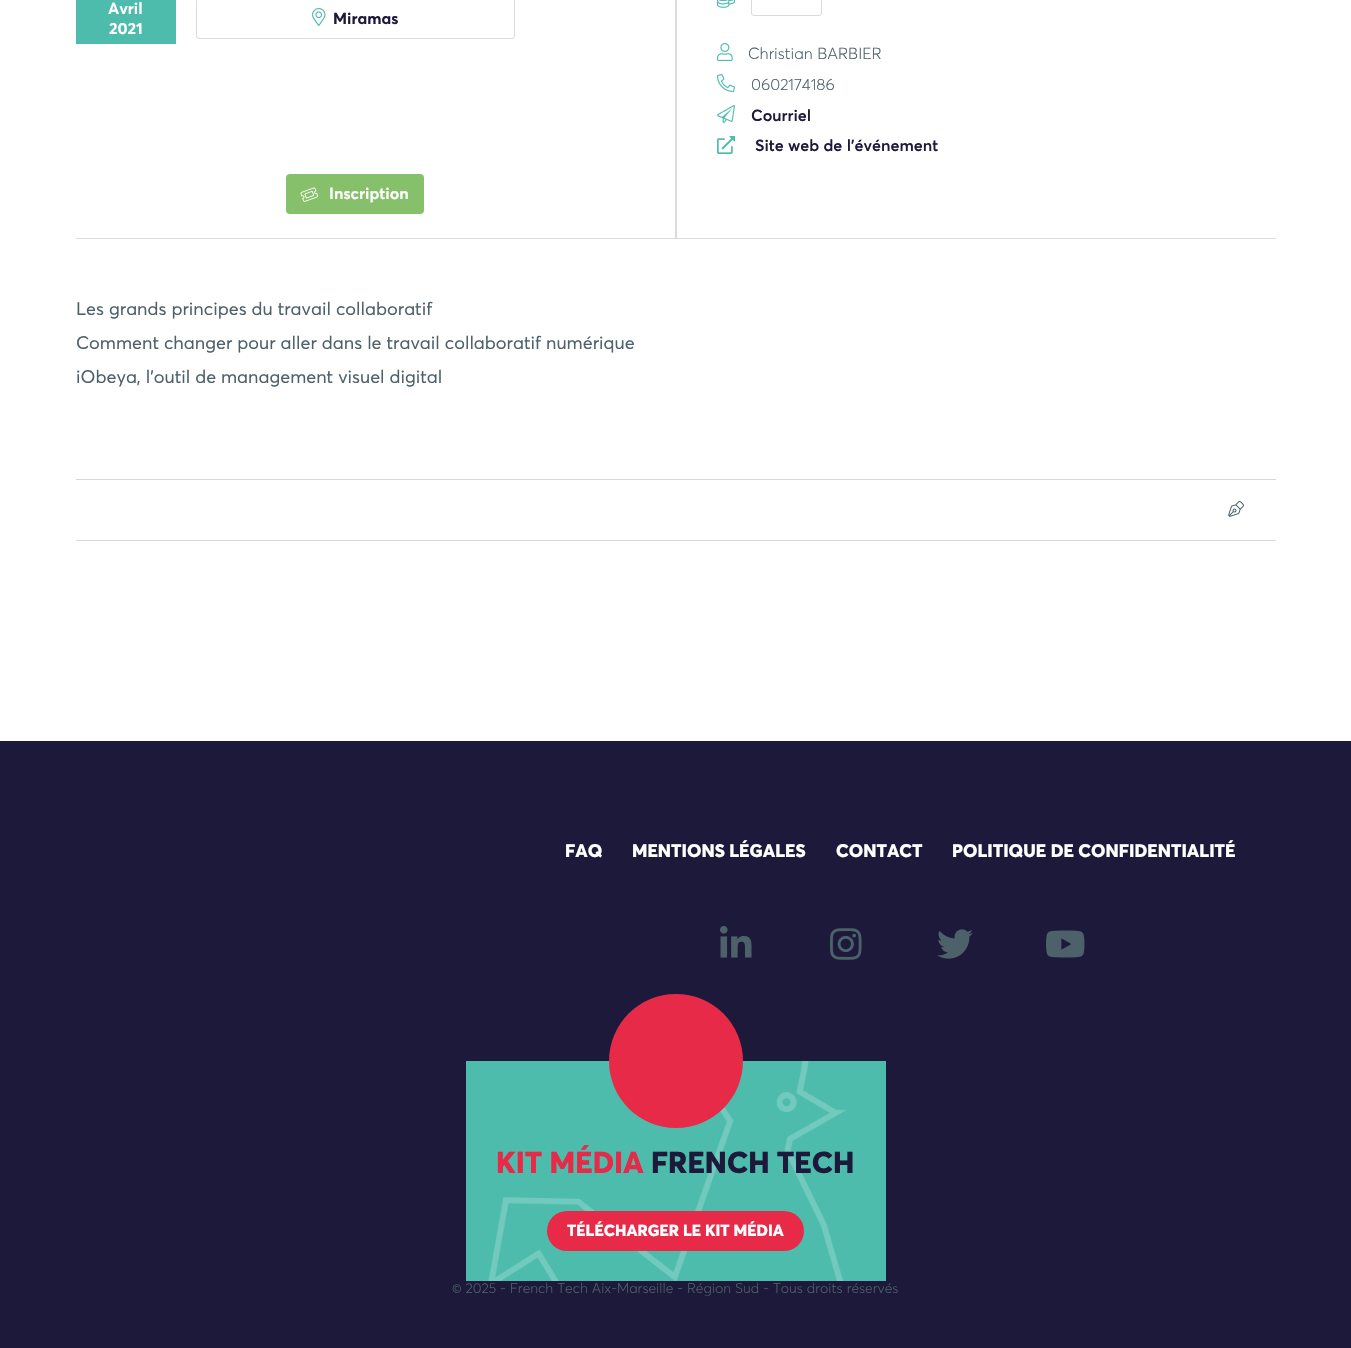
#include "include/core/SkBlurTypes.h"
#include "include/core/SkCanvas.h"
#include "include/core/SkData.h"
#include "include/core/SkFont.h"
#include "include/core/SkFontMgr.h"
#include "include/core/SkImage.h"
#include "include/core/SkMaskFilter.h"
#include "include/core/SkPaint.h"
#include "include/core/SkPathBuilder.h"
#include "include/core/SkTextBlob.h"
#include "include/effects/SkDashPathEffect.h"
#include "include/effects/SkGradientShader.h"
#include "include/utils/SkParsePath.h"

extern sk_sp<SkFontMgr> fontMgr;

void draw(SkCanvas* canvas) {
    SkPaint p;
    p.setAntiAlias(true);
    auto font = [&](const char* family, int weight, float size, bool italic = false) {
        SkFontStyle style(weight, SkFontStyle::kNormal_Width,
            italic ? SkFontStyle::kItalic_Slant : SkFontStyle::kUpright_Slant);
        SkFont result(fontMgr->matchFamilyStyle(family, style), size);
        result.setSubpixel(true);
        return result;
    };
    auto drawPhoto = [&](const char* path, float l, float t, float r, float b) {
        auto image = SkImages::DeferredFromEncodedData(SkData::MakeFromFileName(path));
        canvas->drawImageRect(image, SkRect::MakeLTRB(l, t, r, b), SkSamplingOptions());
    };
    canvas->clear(0xFFFFFFFF);
    {
        const struct { float l, t, r, b; SkColor color; } items[] = {
            {76, 238, 1276, 239, 0xFFDADADA},
            {675, 0, 677, 238, 0xFFDADADA},
            {76, 0, 176, 44, 0xFF4EBCAD},
        };
        for (auto [l, t, r, b, color] : items) {
            p.setColor(color);
            canvas->drawRect(SkRect::MakeLTRB(l, t, r, b), p);
        }
    }
    auto font1 = font("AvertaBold", 700, 16);
    p.setColor(0xFFFFFFFF);
    canvas->drawString("Avril", 108, 14, font1, p);
    canvas->drawString("2021", 109, 34, font1, p);
    p.setStyle(SkPaint::kStroke_Style);
    p.setStrokeWidth(1);
    p.setColor(0xFFDADADA);
    canvas->drawRoundRect(SkRect::MakeLTRB(196.5f, -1.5f, 514.5f, 38.5f), 2.5f, 2.5f, p);
    drawPhoto("media/1.png", 312, 8, 326, 26);
    p.setStyle(SkPaint::kFill_Style);
    p.setColor(0xFF1C193A);
    canvas->drawString("Miramas", 333, 24, font1, p);
    p.setColor(0xFF86C06A);
    canvas->drawRoundRect(SkRect::MakeLTRB(286, 174, 424, 214), 4, 4, p);
    drawPhoto("media/2.png", 300, 187, 319, 202);
    p.setColor(0xFFFFFFFF);
    canvas->drawString("Inscription", 329, 199, font1, p);
    drawPhoto("media/3.png", 717, 0, 735, 8);
    p.setStyle(SkPaint::kStroke_Style);
    p.setColor(0xFFDADADA);
    canvas->drawRoundRect(SkRect::MakeLTRB(751.5f, -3.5f, 821.5f, 15.5f), 2.5f, 2.5f, p);
    drawPhoto("media/4.png", 717, 43, 733, 61);
    auto font2 = font("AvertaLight", 300, 16);
    p.setStyle(SkPaint::kFill_Style);
    p.setColor(0xFF4D616A);
    canvas->drawString("Christian BARBIER", 748, 59, font2, p);
    drawPhoto("media/5.png", 717, 74, 735, 92);
    canvas->drawString("0602174186", 751, 90, font2, p);
    drawPhoto("media/6.png", 717, 105, 735, 123);
    auto font3 = font("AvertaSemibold", 600, 16);
    p.setColor(0xFF1C193A);
    canvas->drawString("Courriel", 751, 121, font3, p);
    drawPhoto("media/7.png", 717, 136, 735, 154);
    canvas->drawString("Site web de l'événement", 755, 151, font3, p);
    auto font4 = font("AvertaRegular", 400, 18);
    p.setColor(0xFF4D616A);
    {
        const struct { const char* s; float x, y; } items[] = {
            {"Les grands principes du travail collaboratif", 76, 315},
            {"Comment changer pour aller dans le travail collaboratif numérique", 76, 349},
            {"iObeya, l’outil de management visuel digital", 76, 383},
        };
        for (auto [s, x, y] : items) {
            canvas->drawString(s, x, y, font4, p);
        }
    }
    p.setColor(0xFFD4D9DB);
    canvas->drawRect(SkRect::MakeLTRB(76, 479, 1276, 480), p);
    canvas->drawRect(SkRect::MakeLTRB(76, 540, 1276, 541), p);
    drawPhoto("media/8.png", 1228, 501, 1244, 517);
    p.setColor(0xFF1C193A);
    canvas->drawRect(SkRect::MakeLTRB(0, 741, 1351, 1348), p);
    auto font5 = font("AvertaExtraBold", 800, 18);
    p.setColor(0xFFFFFFFF);
    {
        const struct { const char* s; float x, y; } items[] = {
            {"FAQ", 565, 857},
            {"MENTIONS LÉGALES", 632, 857},
            {"CONTACT", 836, 857},
            {"POLITIQUE DE CONFIDENTIALITÉ", 952, 857},
        };
        for (auto [s, x, y] : items) {
            canvas->drawString(s, x, y, font5, p);
        }
    }
    drawPhoto("media/9.png", 720, 926, 752, 958);
    drawPhoto("media/10.png", 830, 928, 862, 960);
    drawPhoto("media/11.png", 937, 929, 973, 959);
    drawPhoto("media/12.png", 1046, 930, 1085, 958);
    p.setColor(0xFF4EBCAD);
    canvas->drawRect(SkRect::MakeLTRB(466, 1061, 886, 1281), p);
    drawPhoto("media/13.png", 488, 1061, 847, 1281);
    p.setColor(0xFFE62A47);
    canvas->drawCircle(676, 1061, 67, p);
    auto font6 = font("AvertaExtraBold", 800, 30);
    canvas->drawString("KIT MÉDIA", 496, 1173, font6, p);
    p.setColor(0xFF1C193A);
    canvas->drawString("FRENCH TECH", 651, 1173, font6, p);
    p.setColor(0xFFE62A47);
    canvas->drawRoundRect(SkRect::MakeLTRB(547, 1211, 804, 1251), 20, 20, p);
    auto font7 = font("AvertaExtraBold", 800, 16);
    p.setColor(0xFFFFFFFF);
    canvas->drawString("TÉLÉCHARGER LE KIT MÉDIA", 567, 1236, font7, p);
    auto font8 = font("AvertaLight", 300, 14);
    p.setColor(0xFF4D616A);
    canvas->drawString("© 2025 - French Tech Aix-Marseille - Région Sud - Tous droits réservés", 452, 1293, font8, p);
}
